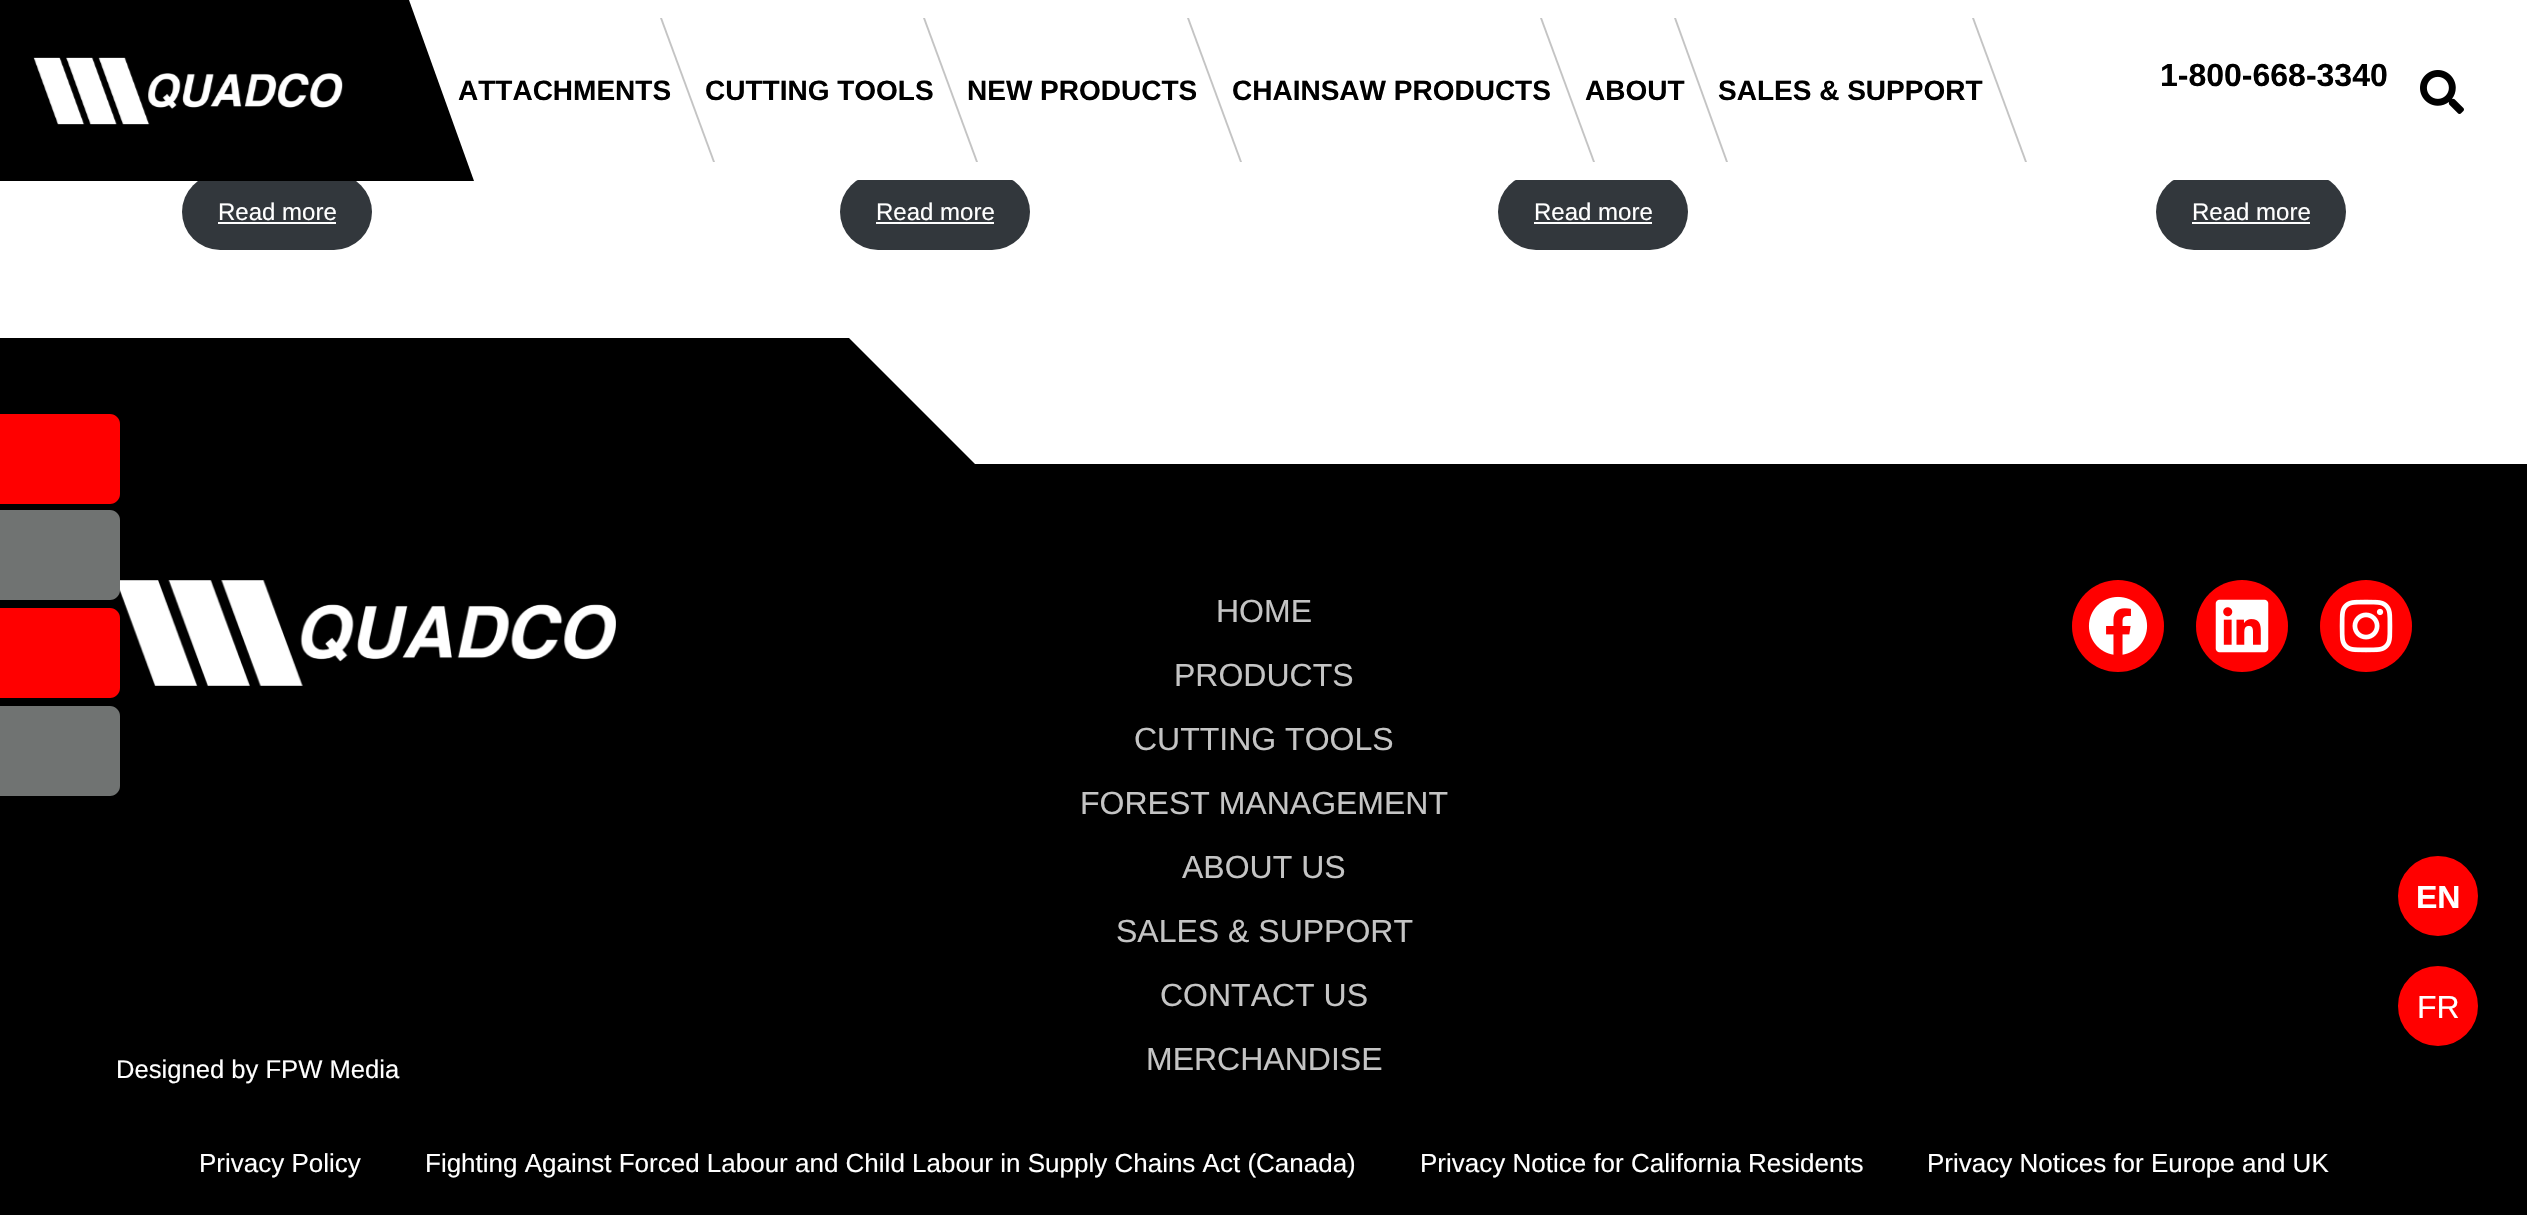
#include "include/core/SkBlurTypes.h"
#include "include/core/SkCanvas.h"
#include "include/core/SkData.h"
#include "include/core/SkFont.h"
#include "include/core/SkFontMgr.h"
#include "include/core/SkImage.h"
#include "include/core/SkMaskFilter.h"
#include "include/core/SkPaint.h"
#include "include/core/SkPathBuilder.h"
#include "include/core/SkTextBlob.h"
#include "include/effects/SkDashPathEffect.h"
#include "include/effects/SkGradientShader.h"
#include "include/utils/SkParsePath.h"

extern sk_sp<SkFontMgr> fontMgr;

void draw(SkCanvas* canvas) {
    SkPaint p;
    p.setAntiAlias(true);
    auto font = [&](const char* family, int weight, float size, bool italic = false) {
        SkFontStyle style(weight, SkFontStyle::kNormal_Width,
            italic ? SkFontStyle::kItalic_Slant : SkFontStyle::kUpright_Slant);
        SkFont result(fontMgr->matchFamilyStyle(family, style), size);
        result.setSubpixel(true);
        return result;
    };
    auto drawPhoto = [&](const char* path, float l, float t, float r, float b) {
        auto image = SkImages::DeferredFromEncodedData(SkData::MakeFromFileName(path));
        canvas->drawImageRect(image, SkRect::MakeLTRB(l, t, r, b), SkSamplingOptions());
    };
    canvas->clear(0xFFFFFFFF);
    p.setColor(0xFF32373C);
    canvas->drawRoundRect(SkRect::MakeLTRB(840, 174, 1030, 250), 38, 38, p);
    canvas->drawRoundRect(SkRect::MakeLTRB(1498, 174, 1688, 250), 38, 38, p);
    canvas->drawRoundRect(SkRect::MakeLTRB(2156, 174, 2346, 250), 38, 38, p);
    p.setColor(0xFFFFFFFF);
    canvas->drawRect(SkRect::MakeLTRB(857, 174, 2329, 180), p);
    p.setColor(0xFF32373C);
    canvas->drawRoundRect(SkRect::MakeLTRB(182, 174, 372, 250), 38, 38, p);
    p.setColor(0xFF000000);
    canvas->drawPath(SkPathBuilder().moveTo(-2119, 0).lineTo(409, 0).lineTo(474, 181).lineTo(-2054, 181).close().detach(), p);
    drawPhoto("media/1.png", 33, 57, 343, 125);
    p.setColor(0xFFC4C4C4);
    canvas->drawPath(SkPathBuilder().moveTo(660, 18).lineTo(662, 18).lineTo(715, 162).lineTo(713, 162).close().detach(), p);
    auto font1 = font("Liberation Sans", 700, 28);
    p.setColor(0xFF000000);
    canvas->drawString("ATTACHMENTS", 458, 100, font1, p);
    p.setColor(0xFFC4C4C4);
    canvas->drawPath(SkPathBuilder().moveTo(923, 18).lineTo(925, 18).lineTo(978, 162).lineTo(976, 162).close().detach(), p);
    p.setColor(0xFF000000);
    canvas->drawString("CUTTING TOOLS", 705, 100, font1, p);
    p.setColor(0xFFC4C4C4);
    canvas->drawPath(SkPathBuilder().moveTo(1187, 18).lineTo(1189, 18).lineTo(1242, 162).lineTo(1240, 162).close().detach(), p);
    p.setColor(0xFF000000);
    canvas->drawString("NEW PRODUCTS", 967, 100, font1, p);
    p.setColor(0xFFC4C4C4);
    canvas->drawPath(SkPathBuilder().moveTo(1540, 18).lineTo(1542, 18).lineTo(1595, 162).lineTo(1593, 162).close().detach(), p);
    p.setColor(0xFF000000);
    canvas->drawString("CHAINSAW PRODUCTS", 1232, 100, font1, p);
    p.setColor(0xFFC4C4C4);
    canvas->drawPath(SkPathBuilder().moveTo(1674, 18).lineTo(1676, 18).lineTo(1728, 162).lineTo(1726, 162).close().detach(), p);
    p.setColor(0xFF000000);
    canvas->drawString("ABOUT", 1585, 100, font1, p);
    p.setColor(0xFFC4C4C4);
    canvas->drawPath(SkPathBuilder().moveTo(1972, 18).lineTo(1974, 18).lineTo(2027, 162).lineTo(2025, 162).close().detach(), p);
    p.setColor(0xFF000000);
    canvas->drawString("SALES & SUPPORT", 1718, 100, font1, p);
    auto font2 = font("Liberation Sans", 700, 32);
    canvas->drawString("1-800-668-3340", 2160, 86, font2, p);
    drawPhoto("media/2.png", 2420, 70, 2464, 114);
    auto font3 = font("Liberation Sans", 400, 24);
    p.setColor(0xFFFFFFFF);
    canvas->drawString("Read more", 218, 220, font3, p);
    canvas->drawRect(SkRect::MakeLTRB(218, 222, 336, 224), p);
    canvas->drawString("Read more", 876, 220, font3, p);
    canvas->drawRect(SkRect::MakeLTRB(876, 222, 994, 224), p);
    canvas->drawString("Read more", 1534, 220, font3, p);
    canvas->drawRect(SkRect::MakeLTRB(1534, 222, 1652, 224), p);
    canvas->drawString("Read more", 2192, 220, font3, p);
    canvas->drawRect(SkRect::MakeLTRB(2192, 222, 2310, 224), p);
    p.setColor(0xFF000000);
    canvas->drawPath(SkPathBuilder().moveTo(-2, 338).lineTo(-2, 466).lineTo(1009, 466).lineTo(977, 466).lineTo(849, 338).close().detach(), p);
    canvas->drawRect(SkRect::MakeLTRB(0, 464, 2527, 1215), p);
    p.setColor(0xFFFF0000);
    canvas->drawPath(SkPathBuilder().moveTo(0, 414).lineTo(110, 414).cubicTo(115.5f, 414, 120, 418.5f, 120, 424).lineTo(120, 494).cubicTo(120, 499.5f, 115.5f, 504, 110, 504).lineTo(0, 504).close().detach(), p);
    drawPhoto("media/3.png", 119, 580, 616, 686);
    p.setColor(0xFF707372);
    canvas->drawPath(SkPathBuilder().moveTo(0, 510).lineTo(110, 510).cubicTo(115.5f, 510, 120, 514.5f, 120, 520).lineTo(120, 590).cubicTo(120, 595.5f, 115.5f, 600, 110, 600).lineTo(0, 600).close().detach(), p);
    p.setColor(0xFFFF0000);
    canvas->drawPath(SkPathBuilder().moveTo(0, 608).lineTo(110, 608).cubicTo(115.5f, 608, 120, 612.5f, 120, 618).lineTo(120, 688).cubicTo(120, 693.5f, 115.5f, 698, 110, 698).lineTo(0, 698).close().detach(), p);
    auto font4 = font("Liberation Sans", 400, 25.6f);
    p.setColor(0xFFFFFFFF);
    canvas->drawString("Designed by FPW Media", 116, 1078, font4, p);
    auto font5 = font("Liberation Sans", 400, 32);
    p.setColor(0xFFC4C4C4);
    {
        const struct { const char* s; float x, y; } items[] = {
            {"HOME", 1216, 622},
            {"PRODUCTS", 1174, 686},
            {"CUTTING TOOLS", 1134, 750},
            {"FOREST MANAGEMENT", 1080, 814},
            {"ABOUT US", 1182, 878},
            {"SALES & SUPPORT", 1116, 942},
            {"CONTACT US", 1160, 1006},
            {"MERCHANDISE", 1146, 1070},
        };
        for (auto [s, x, y] : items) {
            canvas->drawString(s, x, y, font5, p);
        }
    }
    p.setColor(0xFFFF0000);
    canvas->drawCircle(2118, 626, 46, p);
    drawPhoto("media/4.png", 2088, 596, 2148, 655);
    canvas->drawCircle(2242, 626, 46, p);
    drawPhoto("media/5.png", 2215, 599, 2269, 653);
    canvas->drawCircle(2366, 626, 46, p);
    drawPhoto("media/6.png", 2339, 599, 2393, 653);
    auto font6 = font("Liberation Sans", 400, 26);
    p.setColor(0xFFFFFFFF);
    {
        const struct { const char* s; float x, y; } items[] = {
            {"Privacy Policy", 199, 1172},
            {"Fighting Against Forced Labour and Child Labour in Supply Chains Act (Canada)", 425, 1172},
            {"Privacy Notice for California Residents", 1420, 1172},
            {"Privacy Notices for Europe and UK", 1927, 1172},
        };
        for (auto [s, x, y] : items) {
            canvas->drawString(s, x, y, font6, p);
        }
    }
    p.setColor(0xFF707372);
    canvas->drawPath(SkPathBuilder().moveTo(0, 706).lineTo(110, 706).cubicTo(115.5f, 706, 120, 710.5f, 120, 716).lineTo(120, 786).cubicTo(120, 791.5f, 115.5f, 796, 110, 796).lineTo(0, 796).close().detach(), p);
    p.setColor(0xFFFF0000);
    canvas->drawCircle(2438, 896, 39, p);
    p.setStyle(SkPaint::kStroke_Style);
    p.setStrokeWidth(2);
    canvas->drawCircle(2438, 896, 39, p);
    p.setStyle(SkPaint::kFill_Style);
    p.setColor(0xFFFFFFFF);
    canvas->drawString("EN", 2416, 908, font2, p);
    p.setColor(0xFFFF0000);
    canvas->drawCircle(2438, 1006, 39, p);
    p.setStyle(SkPaint::kStroke_Style);
    canvas->drawCircle(2438, 1006, 39, p);
    p.setStyle(SkPaint::kFill_Style);
    p.setColor(0xFFFFFFFF);
    canvas->drawString("FR", 2417, 1018, font5, p);
}
